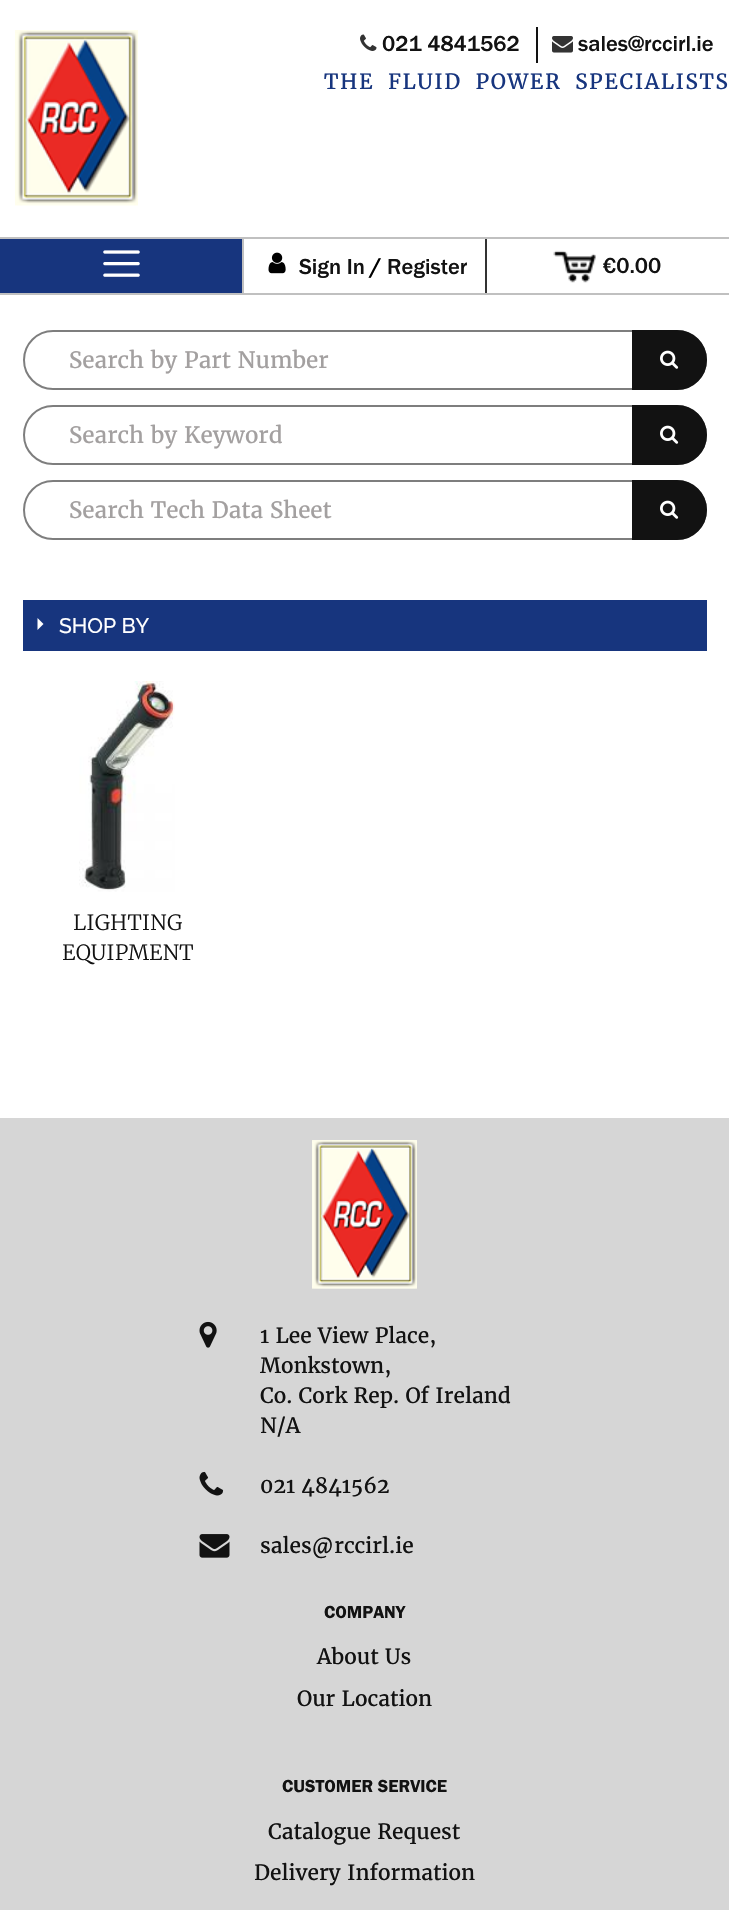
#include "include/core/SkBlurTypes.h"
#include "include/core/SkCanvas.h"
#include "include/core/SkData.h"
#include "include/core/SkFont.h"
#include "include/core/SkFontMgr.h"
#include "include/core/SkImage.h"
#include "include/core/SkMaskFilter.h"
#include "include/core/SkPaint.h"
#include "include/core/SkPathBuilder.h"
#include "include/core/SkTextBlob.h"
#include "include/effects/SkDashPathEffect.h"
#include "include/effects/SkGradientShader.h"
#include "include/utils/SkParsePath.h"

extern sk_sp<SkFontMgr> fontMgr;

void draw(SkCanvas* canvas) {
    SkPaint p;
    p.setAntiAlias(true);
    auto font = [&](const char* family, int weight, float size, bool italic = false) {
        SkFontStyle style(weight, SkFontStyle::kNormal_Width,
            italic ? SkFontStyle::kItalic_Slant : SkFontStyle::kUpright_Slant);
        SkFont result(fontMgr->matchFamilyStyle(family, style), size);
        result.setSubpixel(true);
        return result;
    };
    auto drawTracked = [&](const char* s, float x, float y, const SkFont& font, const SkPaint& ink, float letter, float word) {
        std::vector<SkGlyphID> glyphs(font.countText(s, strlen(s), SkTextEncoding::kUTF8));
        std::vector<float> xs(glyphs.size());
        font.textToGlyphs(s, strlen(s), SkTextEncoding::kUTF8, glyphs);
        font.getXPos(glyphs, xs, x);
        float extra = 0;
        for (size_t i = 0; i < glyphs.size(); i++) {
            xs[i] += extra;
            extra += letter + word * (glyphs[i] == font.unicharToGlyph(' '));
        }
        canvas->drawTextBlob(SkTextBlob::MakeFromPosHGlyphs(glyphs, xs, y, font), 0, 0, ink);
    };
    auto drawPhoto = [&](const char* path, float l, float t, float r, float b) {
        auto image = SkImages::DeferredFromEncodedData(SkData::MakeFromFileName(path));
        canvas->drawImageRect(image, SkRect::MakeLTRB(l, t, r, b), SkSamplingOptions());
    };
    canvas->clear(0xFFFFFFFF);
    drawPhoto("media/1.png", 15, 30, 138, 206);
    p.setColor(0xFFC0C0C0);
    canvas->drawRect(SkRect::MakeLTRB(0, 237, 729, 239), p);
    p.setColor(0xFF121212);
    canvas->drawRect(SkRect::MakeLTRB(536, 27, 538, 63), p);
    drawPhoto("media/2.png", 360, 34, 377, 51);
    auto font1 = font("Franklin Gothic", 500, 22.5f);
    canvas->drawString("021 4841562", 382, 51, font1, p);
    drawPhoto("media/3.png", 552, 36, 573, 53);
    canvas->drawString("sales@rccirl.ie", 578, 51, font1, p);
    {
        const struct { float l, t, r, b; SkColor color; } items[] = {
            {0, 239, 242, 293, 0xFF17357E},
            {485, 239, 487, 294, 0xFF333333},
            {243, 293, 729, 295, 0xFFC0C0C0},
            {242, 239, 244, 294, 0xFFC0C0C0},
            {0, 293, 243, 295, 0xFFC0C0C0},
        };
        for (auto [l, t, r, b, color] : items) {
            p.setColor(color);
            canvas->drawRect(SkRect::MakeLTRB(l, t, r, b), p);
        }
    }
    drawPhoto("media/4.png", 103, 250, 140, 277);
    drawPhoto("media/5.png", 268, 252, 286, 274);
    p.setColor(0xFF121212);
    canvas->drawString("Sign In", 299, 274, font1, p);
    auto font2 = font("Franklin Gothic", 700, 22.5f);
    p.setColor(0xFF000000);
    canvas->drawString("/", 370, 274, font2, p);
    p.setColor(0xFF121212);
    canvas->drawString("Register", 387, 274, font1, p);
    drawPhoto("media/6.png", 553, 250, 596, 283);
    canvas->drawString("€0.00", 603, 273, font1, p);
    auto font3 = font("Merriweather", 400, 21);
    p.setColor(0xFF17357E);
    drawTracked("THE FLUID POWER SPECIALISTS", 324, 89, font3, p, 1.5f, 6);
    p.setStyle(SkPaint::kStroke_Style);
    p.setStrokeWidth(2);
    p.setColor(0xFF7E7E7E);
    canvas->drawRoundRect(SkRect::MakeLTRB(24, 331, 706, 389), 29, 29, p);
    auto font4 = font("Merriweather", 400, 22.5f);
    p.setStyle(SkPaint::kFill_Style);
    p.setColor(0xFFA3A0A0);
    canvas->drawString("Search by Part Number", 69, 368, font4, p);
    p.setColor(0xFF121212);
    canvas->drawPath(SkPathBuilder().moveTo(633, 331).lineTo(677, 331).cubicTo(693, 331, 706, 344, 706, 360).cubicTo(706, 376, 693, 389, 677, 389).lineTo(633, 389).close().detach(), p);
    p.setStyle(SkPaint::kStroke_Style);
    canvas->drawPath(SkPathBuilder().moveTo(633, 331).lineTo(677, 331).cubicTo(693, 331, 706, 344, 706, 360).cubicTo(706, 376, 693, 389, 677, 389).lineTo(633, 389).close().detach(), p);
    drawPhoto("media/7.png", 660, 350, 679, 369);
    p.setColor(0xFF7E7E7E);
    canvas->drawRoundRect(SkRect::MakeLTRB(24, 406, 706, 464), 29, 29, p);
    p.setStyle(SkPaint::kFill_Style);
    p.setColor(0xFFA3A0A0);
    canvas->drawString("Search by Keyword", 69, 443, font4, p);
    p.setColor(0xFF121212);
    canvas->drawPath(SkPathBuilder().moveTo(633, 406).lineTo(677, 406).cubicTo(693, 406, 706, 419, 706, 435).cubicTo(706, 451, 693, 464, 677, 464).lineTo(633, 464).close().detach(), p);
    p.setStyle(SkPaint::kStroke_Style);
    canvas->drawPath(SkPathBuilder().moveTo(633, 406).lineTo(677, 406).cubicTo(693, 406, 706, 419, 706, 435).cubicTo(706, 451, 693, 464, 677, 464).lineTo(633, 464).close().detach(), p);
    drawPhoto("media/7.png", 660, 425, 679, 444);
    p.setColor(0xFF7E7E7E);
    canvas->drawRoundRect(SkRect::MakeLTRB(24, 481, 706, 539), 29, 29, p);
    p.setStyle(SkPaint::kFill_Style);
    p.setColor(0xFFA3A0A0);
    canvas->drawString("Search Tech Data Sheet", 69, 518, font4, p);
    p.setColor(0xFF121212);
    canvas->drawPath(SkPathBuilder().moveTo(633, 481).lineTo(677, 481).cubicTo(693, 481, 706, 494, 706, 510).cubicTo(706, 526, 693, 539, 677, 539).lineTo(633, 539).close().detach(), p);
    p.setStyle(SkPaint::kStroke_Style);
    canvas->drawPath(SkPathBuilder().moveTo(633, 481).lineTo(677, 481).cubicTo(693, 481, 706, 494, 706, 510).cubicTo(706, 526, 693, 539, 677, 539).lineTo(633, 539).close().detach(), p);
    drawPhoto("media/7.png", 660, 500, 679, 519);
    p.setStyle(SkPaint::kFill_Style);
    p.setColor(0xFF17357E);
    canvas->drawRect(SkRect::MakeLTRB(23, 600, 707, 651), p);
    p.setColor(0xFFFFFFFF);
    canvas->drawPath(SkPathBuilder().moveTo(37.5f, 630).lineTo(37.5f, 618).lineTo(43.5f, 624).close().detach(), p);
    auto font5 = font("Raleway", 500, 21);
    canvas->drawString("SHOP BY", 59, 633, font5, p);
    drawPhoto("media/8.png", 79, 681, 175, 892);
    auto font6 = font("Merriweather", 300, 21);
    p.setColor(0xFF121212);
    canvas->drawString("LIGHTING", 73, 930, font6, p);
    canvas->drawString("EQUIPMENT", 62, 960, font6, p);
    p.setColor(0xFFD6D6D6);
    canvas->drawRect(SkRect::MakeLTRB(0, 1118, 729, 1910), p);
    drawPhoto("media/9.png", 312, 1140, 417, 1289);
    drawPhoto("media/10.png", 199, 1321, 217, 1348);
    p.setColor(0xFF121212);
    {
        const struct { const char* s; float x, y; } items[] = {
            {"1 Lee View Place,", 260, 1343},
            {"Monkstown,", 260, 1373},
            {"Co. Cork Rep. Of Ireland", 260, 1403},
            {"N/A", 260, 1433},
        };
        for (auto [s, x, y] : items) {
            canvas->drawString(s, x, y, font3, p);
        }
    }
    drawPhoto("media/11.png", 199, 1471, 224, 1496);
    canvas->drawString("021 4841562", 260, 1493, font3, p);
    drawPhoto("media/12.png", 199, 1534, 230, 1558);
    canvas->drawString("sales@rccirl.ie", 260, 1553, font3, p);
    auto font7 = font("Franklin Gothic", 400, 18);
    canvas->drawString("COMPANY", 324, 1618, font7, p);
    canvas->drawString("About Us", 317, 1664, font3, p);
    canvas->drawString("Our Location", 297, 1706, font3, p);
    canvas->drawString("CUSTOMER SERVICE", 282, 1792, font7, p);
    canvas->drawString("Catalogue Request", 268, 1839, font3, p);
    canvas->drawString("Delivery Information", 254, 1880, font3, p);
}
